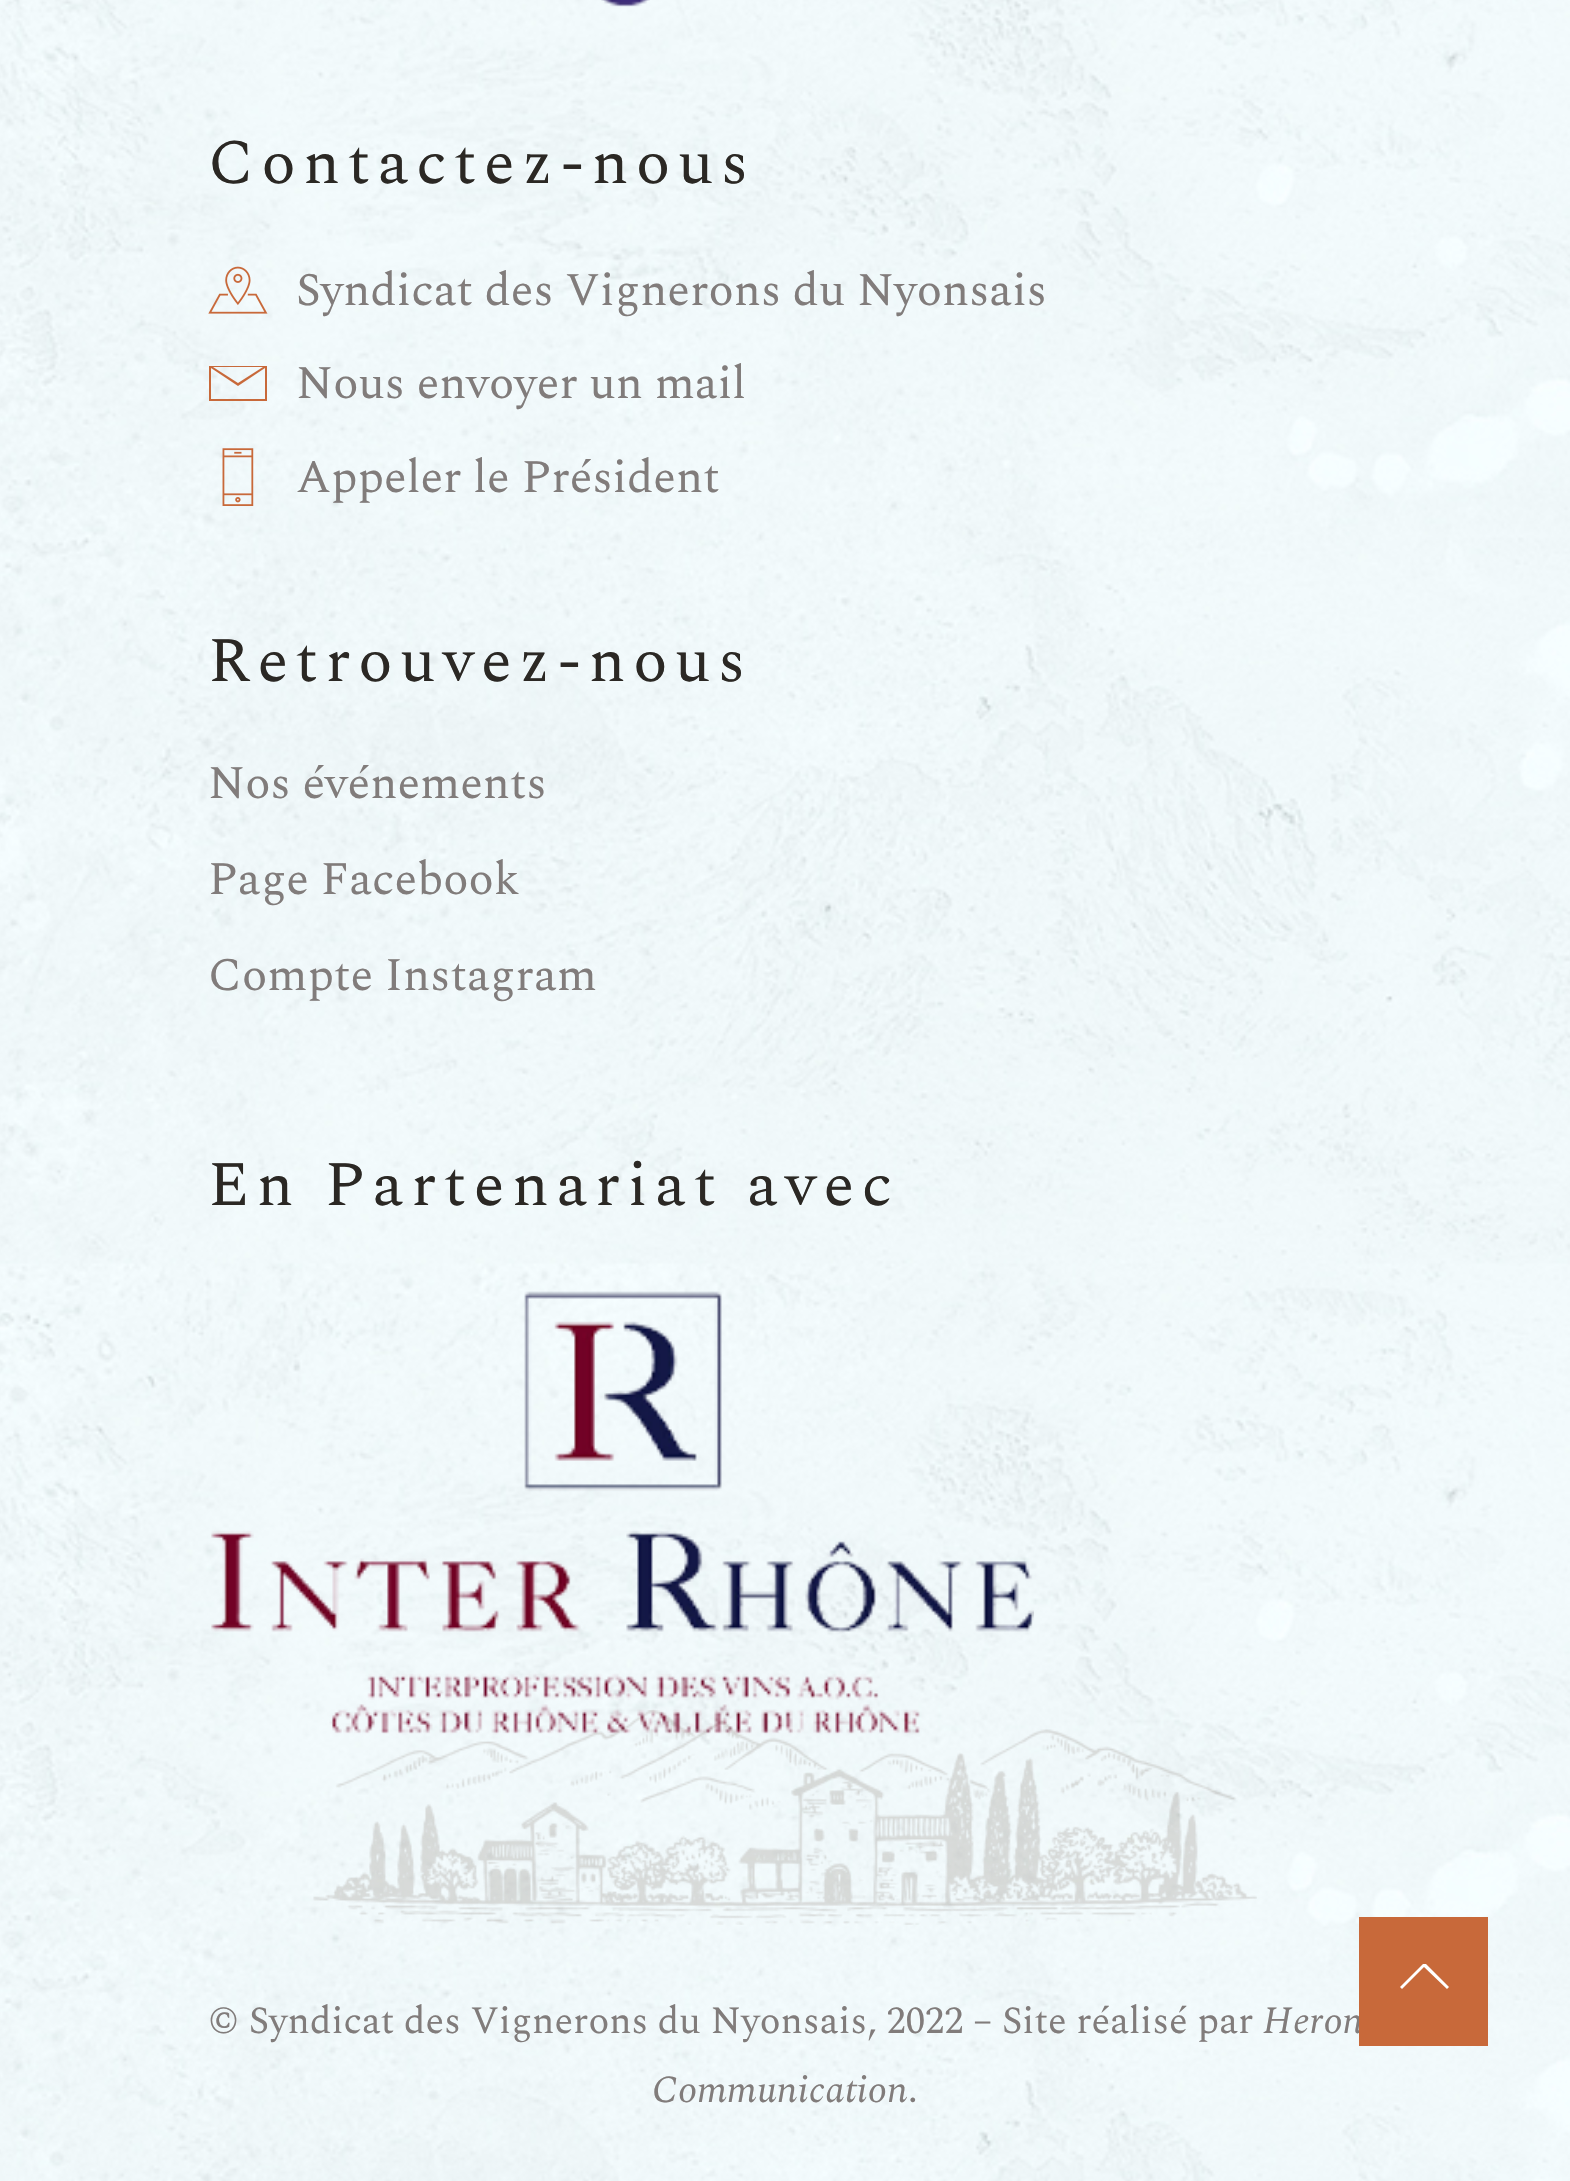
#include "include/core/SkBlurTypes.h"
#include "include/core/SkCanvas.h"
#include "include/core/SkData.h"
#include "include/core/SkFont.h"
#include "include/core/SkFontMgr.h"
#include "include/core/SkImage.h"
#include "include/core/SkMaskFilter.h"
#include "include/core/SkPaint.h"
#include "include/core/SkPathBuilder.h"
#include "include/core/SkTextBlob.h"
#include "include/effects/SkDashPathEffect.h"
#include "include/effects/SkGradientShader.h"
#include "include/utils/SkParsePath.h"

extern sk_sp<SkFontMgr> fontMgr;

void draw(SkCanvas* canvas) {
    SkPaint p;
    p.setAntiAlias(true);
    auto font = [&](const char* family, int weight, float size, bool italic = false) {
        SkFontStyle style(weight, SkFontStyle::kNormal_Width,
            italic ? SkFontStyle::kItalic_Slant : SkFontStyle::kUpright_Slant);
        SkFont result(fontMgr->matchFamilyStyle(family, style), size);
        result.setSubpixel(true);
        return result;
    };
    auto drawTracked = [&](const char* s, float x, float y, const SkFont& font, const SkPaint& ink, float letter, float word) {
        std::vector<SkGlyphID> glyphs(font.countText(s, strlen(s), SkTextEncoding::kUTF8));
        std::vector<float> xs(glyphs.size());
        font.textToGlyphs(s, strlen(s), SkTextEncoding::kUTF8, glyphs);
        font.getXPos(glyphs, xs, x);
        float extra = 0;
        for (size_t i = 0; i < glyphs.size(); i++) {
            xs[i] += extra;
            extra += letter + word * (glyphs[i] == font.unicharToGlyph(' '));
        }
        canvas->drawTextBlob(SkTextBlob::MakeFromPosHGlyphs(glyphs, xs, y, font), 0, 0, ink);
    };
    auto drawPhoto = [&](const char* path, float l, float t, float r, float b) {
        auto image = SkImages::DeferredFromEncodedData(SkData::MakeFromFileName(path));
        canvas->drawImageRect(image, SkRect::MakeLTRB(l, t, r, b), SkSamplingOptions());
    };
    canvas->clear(0xFFFFFFFF);
    drawPhoto("media/1.png", 0, 0, 1570, 2181);
    drawPhoto("media/2.png", 313, 1710, 1257, 1925);
    drawPhoto("media/3.png", 601, 0, 650, 7);
    auto font1 = font("Spectral SC", 400, 63.25f);
    p.setColor(0xFF2B2824);
    drawTracked("Contactez-nous", 208, 183, font1, p, 7.6f, 0);
    drawPhoto("media/4.png", 208, 266, 268, 314);
    auto font2 = font("Spectral", 400, 46.75f);
    p.setColor(0xFF817C7B);
    canvas->drawString("Syndicat des Vignerons du Nyonsais", 296, 305, font2, p);
    p.setColor(0xFFC8693A);
    canvas->drawPath(SkPathBuilder().moveTo(267, 366).lineTo(267, 401).lineTo(209, 401).lineTo(209, 366).close().moveTo(263, 367).lineTo(213, 367).lineTo(238, 383).close().moveTo(211, 399).lineTo(265, 399).lineTo(265, 368).lineTo(238, 386).lineTo(211, 368).close().detach(), p);
    p.setColor(0xFF817C7B);
    canvas->drawString("Nous envoyer un mail", 296, 398, font2, p);
    drawPhoto("media/5.png", 222, 448, 254, 506);
    canvas->drawString("Appeler le Président", 296, 492, font2, p);
    p.setColor(0xFF2B2824);
    drawTracked("Retrouvez-nous", 208, 681, font1, p, 7.6f, 0);
    p.setColor(0xFF817C7B);
    {
        const struct { const char* s; float x, y; } items[] = {
            {"Nos événements", 208, 798},
            {"Page Facebook", 208, 894},
            {"Compte Instagram", 208, 990},
        };
        for (auto [s, x, y] : items) {
            canvas->drawString(s, x, y, font2, p);
        }
    }
    p.setColor(0xFF2B2824);
    drawTracked("En Partenariat avec", 208, 1205, font1, p, 7.6f, 0);
    drawPhoto("media/6.png", 211, 1291, 1034, 1735);
    auto font3 = font("Spectral", 400, 38.5f);
    p.setColor(0xFF817C7B);
    canvas->drawString("© Syndicat des Vignerons du Nyonsais, 2022 – Site réalisé par", 208, 2033, font3, p);
    auto font4 = font("Spectral", 400, 38.5f, true);
    canvas->drawString("Heron", 1263, 2033, font4, p);
    canvas->drawString("Communication", 652, 2102, font4, p);
    canvas->drawString(".", 908, 2102, font3, p);
    p.setColor(0xFFC8693A);
    canvas->drawRect(SkRect::MakeLTRB(1359, 1917, 1488, 2046), p);
    p.setColor(0xFFFFFFFF);
    canvas->drawPath(SkPathBuilder().moveTo(1449, 1987).lineTo(1447, 1989).lineTo(1424, 1967).lineTo(1402, 1989).lineTo(1400, 1987).lineTo(1423, 1964).lineTo(1426, 1964).close().detach(), p);
}
